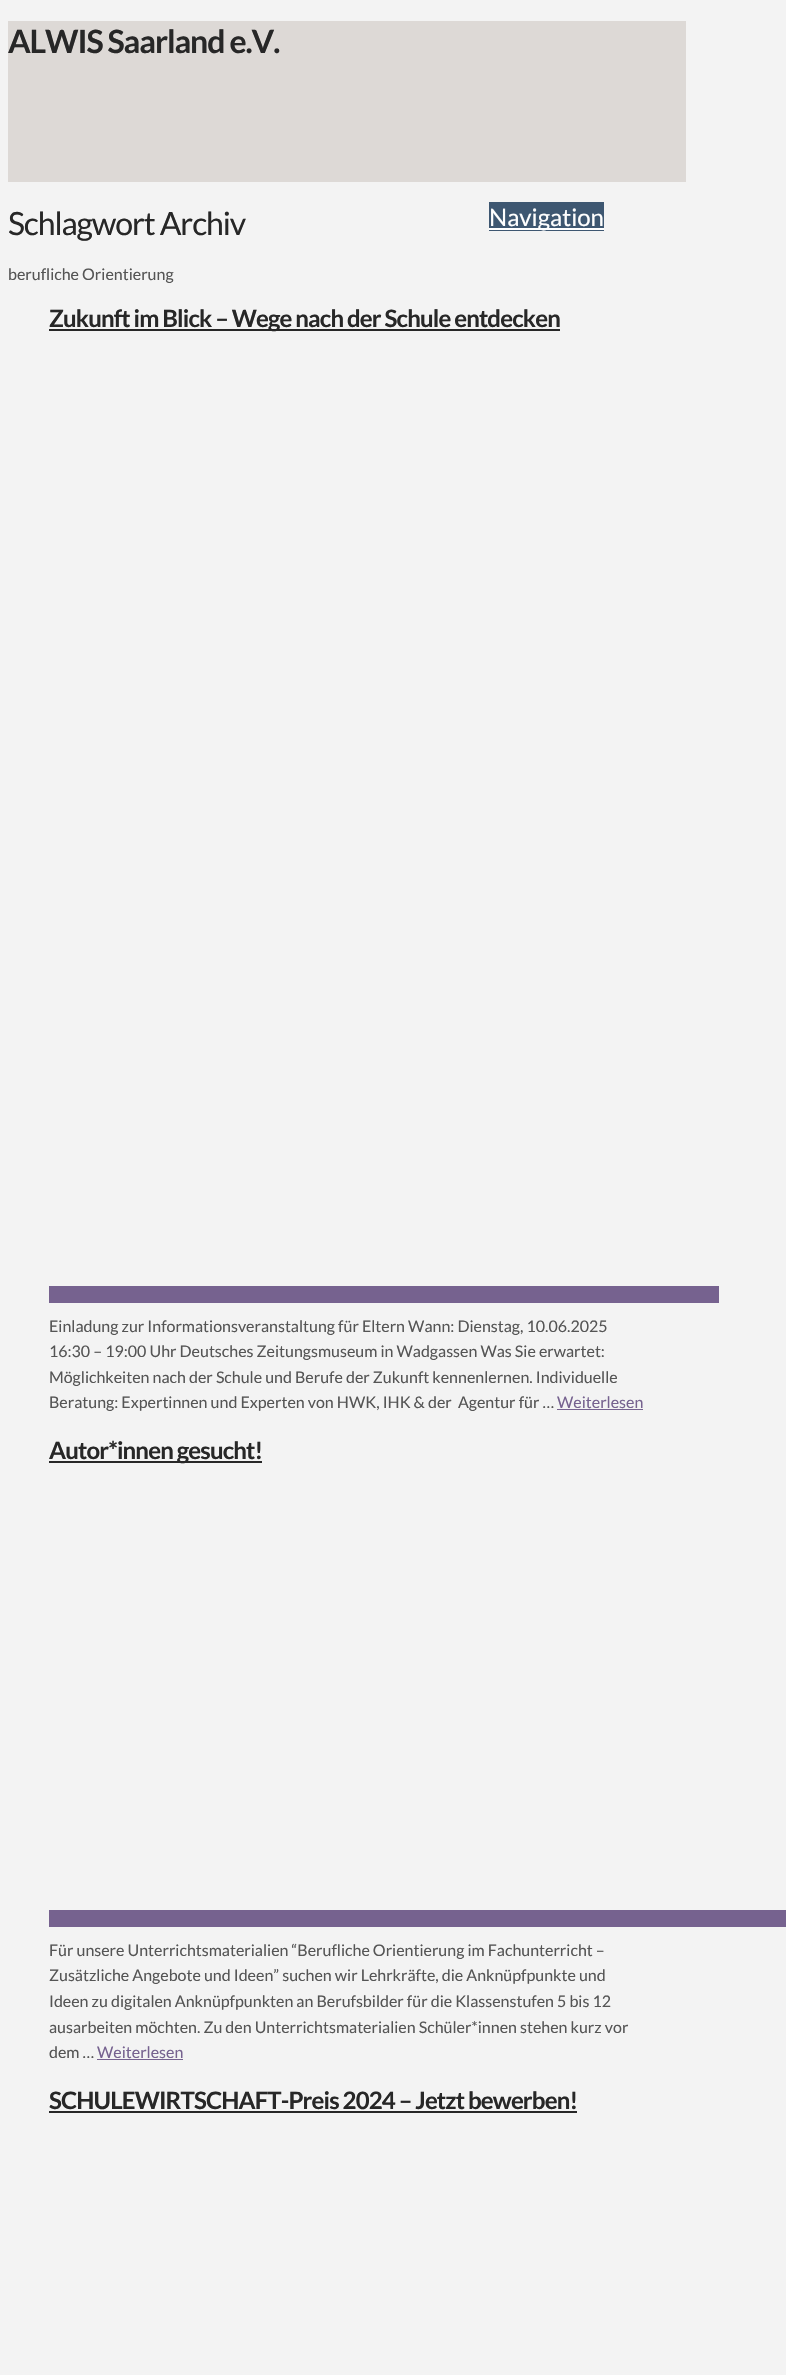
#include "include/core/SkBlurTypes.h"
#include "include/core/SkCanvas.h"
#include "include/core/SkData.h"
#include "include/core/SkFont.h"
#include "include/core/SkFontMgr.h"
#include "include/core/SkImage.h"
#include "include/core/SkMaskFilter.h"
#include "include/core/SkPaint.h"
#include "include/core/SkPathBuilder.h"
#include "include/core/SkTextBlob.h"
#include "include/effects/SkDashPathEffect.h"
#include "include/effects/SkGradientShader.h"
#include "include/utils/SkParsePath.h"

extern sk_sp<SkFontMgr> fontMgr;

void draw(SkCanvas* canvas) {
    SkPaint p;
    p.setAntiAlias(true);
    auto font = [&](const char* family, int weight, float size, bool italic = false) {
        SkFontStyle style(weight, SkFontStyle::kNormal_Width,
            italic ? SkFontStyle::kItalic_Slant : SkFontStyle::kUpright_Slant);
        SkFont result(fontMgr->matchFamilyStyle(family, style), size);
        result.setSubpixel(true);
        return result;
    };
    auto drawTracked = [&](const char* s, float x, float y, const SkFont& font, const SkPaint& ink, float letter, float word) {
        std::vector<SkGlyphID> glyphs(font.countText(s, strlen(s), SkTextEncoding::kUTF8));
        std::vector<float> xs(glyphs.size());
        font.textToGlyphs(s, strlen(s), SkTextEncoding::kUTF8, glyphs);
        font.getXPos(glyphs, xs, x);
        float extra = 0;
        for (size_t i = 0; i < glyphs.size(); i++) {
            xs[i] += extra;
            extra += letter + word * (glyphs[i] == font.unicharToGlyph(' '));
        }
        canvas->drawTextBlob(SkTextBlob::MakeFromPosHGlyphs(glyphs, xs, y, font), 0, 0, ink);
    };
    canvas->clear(0xFFF3F3F3);
    p.setColor(0xFFDDD9D6);
    canvas->drawRect(SkRect::MakeLTRB(8, 21, 686, 182), p);
    auto font1 = font("Lato", 700, 32);
    p.setColor(0xFF272727);
    drawTracked("ALWIS Saarland e.V.", 8, 53, font1, p, -1.1f, 0);
    p.setColor(0xFF3E5771);
    canvas->drawRect(SkRect::MakeLTRB(489, 202, 604, 231), p);
    p.setColor(0xFFFFFFFF);
    canvas->drawRect(SkRect::MakeLTRB(489, 228, 604, 230), p);
    auto font2 = font("Lato", 400, 24);
    canvas->drawString("Navigation", 489, 226, font2, p);
    auto font3 = font("Lato", 400, 32);
    p.setColor(0xFF272727);
    drawTracked("Schlagwort Archiv", 8, 235, font3, p, -1.1f, 0);
    auto font4 = font("Lato", 400, 16);
    p.setColor(0xFF555555);
    canvas->drawString("berufliche Orientierung", 8, 280, font4, p);
    p.setColor(0xFF272727);
    canvas->drawRect(SkRect::MakeLTRB(49, 329, 560, 331), p);
    auto font5 = font("Lato", 700, 24);
    drawTracked("Zukunft im Blick – Wege nach der Schule entdecken", 49, 327, font5, p, -0.85f, 0);
    p.setColor(0xFF76628F);
    canvas->drawRect(SkRect::MakeLTRB(49, 1286, 719, 1303), p);
    p.setColor(0xFF555555);
    {
        const struct { const char* s; float x, y; } items[] = {
            {"Einladung zur Informationsveranstaltung für Eltern Wann: Dienstag, 10.06.2025", 49, 1332},
            {"16:30 – 19:00 Uhr Deutsches Zeitungsmuseum in Wadgassen Was Sie erwartet:", 49, 1357},
            {"Möglichkeiten nach der Schule und Berufe der Zukunft kennenlernen. Individuelle", 49, 1383},
            {"Beratung: Expertinnen und Experten von HWK, IHK & der  Agentur für …", 49, 1408},
        };
        for (auto [s, x, y] : items) {
            canvas->drawString(s, x, y, font4, p);
        }
    }
    p.setColor(0xFF76628F);
    canvas->drawString("Weiterlesen", 557, 1408, font4, p);
    canvas->drawRect(SkRect::MakeLTRB(557, 1409, 643, 1410), p);
    p.setColor(0xFF272727);
    canvas->drawRect(SkRect::MakeLTRB(49, 1461, 262, 1463), p);
    drawTracked("Autor*innen gesucht!", 49, 1459, font5, p, -0.85f, 0);
    p.setColor(0xFF76628F);
    canvas->drawRect(SkRect::MakeLTRB(49, 1910, 786, 1927), p);
    p.setColor(0xFF555555);
    {
        const struct { const char* s; float x, y; } items[] = {
            {"Für unsere Unterrichtsmaterialien “Berufliche Orientierung im Fachunterricht –", 49, 1956},
            {"Zusätzliche Angebote und Ideen” suchen wir Lehrkräfte, die Anknüpfpunkte und", 49, 1981},
            {"Ideen zu digitalen Anknüpfpunkten an Berufsbilder für die Klassenstufen 5 bis 12", 49, 2007},
            {"ausarbeiten möchten. Zu den Unterrichtsmaterialien Schüler*innen stehen kurz vor", 49, 2033},
            {"dem …", 49, 2058},
        };
        for (auto [s, x, y] : items) {
            canvas->drawString(s, x, y, font4, p);
        }
    }
    p.setColor(0xFF76628F);
    canvas->drawString("Weiterlesen", 97, 2058, font4, p);
    canvas->drawRect(SkRect::MakeLTRB(97, 2059, 183, 2060), p);
    p.setColor(0xFF272727);
    drawTracked("SCHULEWIRTSCHAFT-Preis 2024 – Jetzt bewerben!", 49, 2109, font5, p, -0.85f, 0);
    canvas->drawRect(SkRect::MakeLTRB(49, 2111, 577, 2113), p);
}
